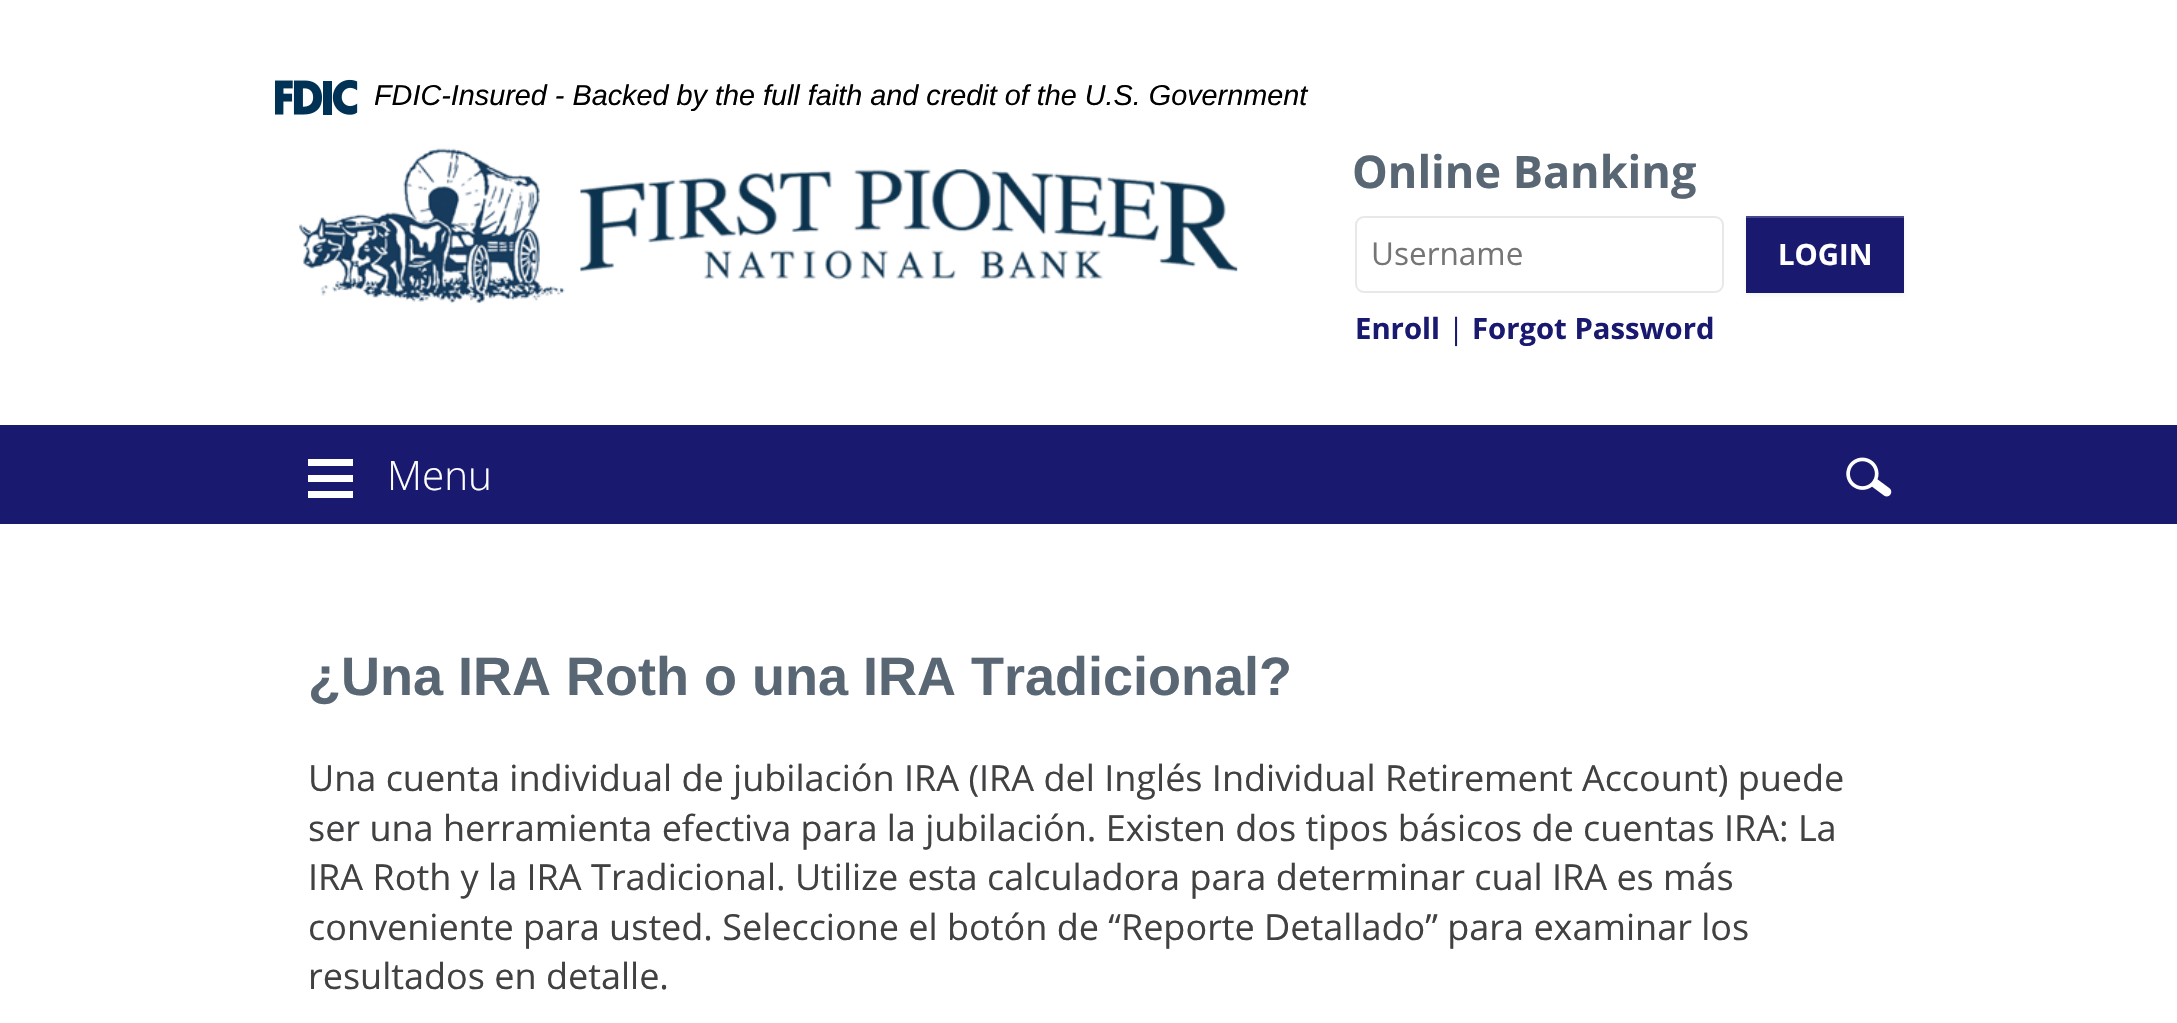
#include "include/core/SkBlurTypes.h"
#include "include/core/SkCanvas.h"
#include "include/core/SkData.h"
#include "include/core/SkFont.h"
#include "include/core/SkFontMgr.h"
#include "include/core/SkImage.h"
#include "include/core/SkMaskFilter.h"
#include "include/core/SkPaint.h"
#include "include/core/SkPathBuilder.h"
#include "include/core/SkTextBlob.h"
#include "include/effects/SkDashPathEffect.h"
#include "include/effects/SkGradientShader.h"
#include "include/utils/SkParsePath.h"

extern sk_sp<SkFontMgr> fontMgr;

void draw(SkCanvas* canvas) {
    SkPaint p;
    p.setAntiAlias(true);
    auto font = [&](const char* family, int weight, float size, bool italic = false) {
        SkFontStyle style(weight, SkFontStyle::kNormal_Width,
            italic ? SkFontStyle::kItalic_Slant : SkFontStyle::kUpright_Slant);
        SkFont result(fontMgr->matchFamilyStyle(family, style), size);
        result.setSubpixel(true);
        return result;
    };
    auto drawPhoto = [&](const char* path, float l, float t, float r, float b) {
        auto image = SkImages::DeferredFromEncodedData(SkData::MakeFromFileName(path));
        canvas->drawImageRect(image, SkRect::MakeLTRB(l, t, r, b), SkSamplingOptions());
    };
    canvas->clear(0xFFFFFFFF);
    drawPhoto("media/1.png", 275, 79, 358, 115);
    auto font1 = font("Liberation Sans", 400, 28.8f, true);
    p.setColor(0xFF000000);
    canvas->drawString("FDIC-Insured - Backed by the full faith and credit of the U.S. Government", 374, 105, font1, p);
    drawPhoto("media/2.png", 299, 148, 1238, 304);
    auto font2 = font("Open Sans", 700, 45);
    p.setColor(0xFF596673);
    canvas->drawString("Online Banking", 1352, 188, font2, p);
    p.setStyle(SkPaint::kStroke_Style);
    p.setStrokeWidth(2);
    p.setColor(0xFFE8E8E9);
    canvas->drawRoundRect(SkRect::MakeLTRB(1356, 217, 1723, 292), 8, 8, p);
    auto font3 = font("Open Sans", 400, 31.5f);
    p.setStyle(SkPaint::kFill_Style);
    p.setColor(0xFF757575);
    canvas->drawString("Username", 1371, 265, font3, p);
    p.setColor(0x0D000000);
    p.setMaskFilter(SkMaskFilter::MakeBlur(kNormal_SkBlurStyle, 2));
    canvas->drawRect(SkRect::MakeLTRB(1746, 218, 1904, 295), p);
    p.setMaskFilter(nullptr);
    p.setColor(0xFF191970);
    canvas->drawRect(SkRect::MakeLTRB(1746, 218, 1904, 293), p);
    p.setColor(0xFF47478D);
    canvas->drawRect(SkRect::MakeLTRB(1746, 216, 1904, 218), p);
    auto font4 = font("Open Sans", 700, 29.25f);
    p.setColor(0xFFFFFFFF);
    canvas->drawString("LOGIN", 1778, 265, font4, p);
    p.setColor(0xFF191970);
    canvas->drawString("Enroll", 1355, 339, font4, p);
    auto font5 = font("Open Sans", 400, 29.25f);
    canvas->drawString("|", 1448, 339, font5, p);
    canvas->drawString("Forgot Password", 1472, 339, font4, p);
    {
        const struct { float l, t, r, b; SkColor color; } items[] = {
            {0, 425, 2177, 524, 0xFF191970},
            {308, 475, 353, 482, 0xFFFFFFFF},
            {308, 459, 353, 466, 0xFFFFFFFF},
            {308, 491, 353, 498, 0xFFFFFFFF},
        };
        for (auto [l, t, r, b, color] : items) {
            p.setColor(color);
            canvas->drawRect(SkRect::MakeLTRB(l, t, r, b), p);
        }
    }
    auto font6 = font("Open Sans", 300, 40.5f);
    canvas->drawString("Menu", 387, 490, font6, p);
    drawPhoto("media/3.png", 1846, 457, 1892, 497);
    auto font7 = font("Liberation Sans", 700, 54);
    p.setColor(0xFF596673);
    canvas->drawString("¿Una IRA Roth o una IRA Tradicional?", 308, 695, font7, p);
    auto font8 = font("Open Sans", 400, 36);
    p.setColor(0xFF414042);
    {
        const struct { const char* s; float x, y; } items[] = {
            {"Una cuenta individual de jubilación IRA (IRA del Inglés Individual Retirement Account) puede", 308, 791},
            {"ser una herramienta efectiva para la jubilación. Existen dos tipos básicos de cuentas IRA: La", 308, 841},
            {"IRA Roth y la IRA Tradicional. Utilize esta calculadora para determinar cual IRA es más", 308, 890},
            {"conveniente para usted. Seleccione el botón de “Reporte Detallado” para examinar los", 308, 940},
            {"resultados en detalle.", 308, 989},
        };
        for (auto [s, x, y] : items) {
            canvas->drawString(s, x, y, font8, p);
        }
    }
}
